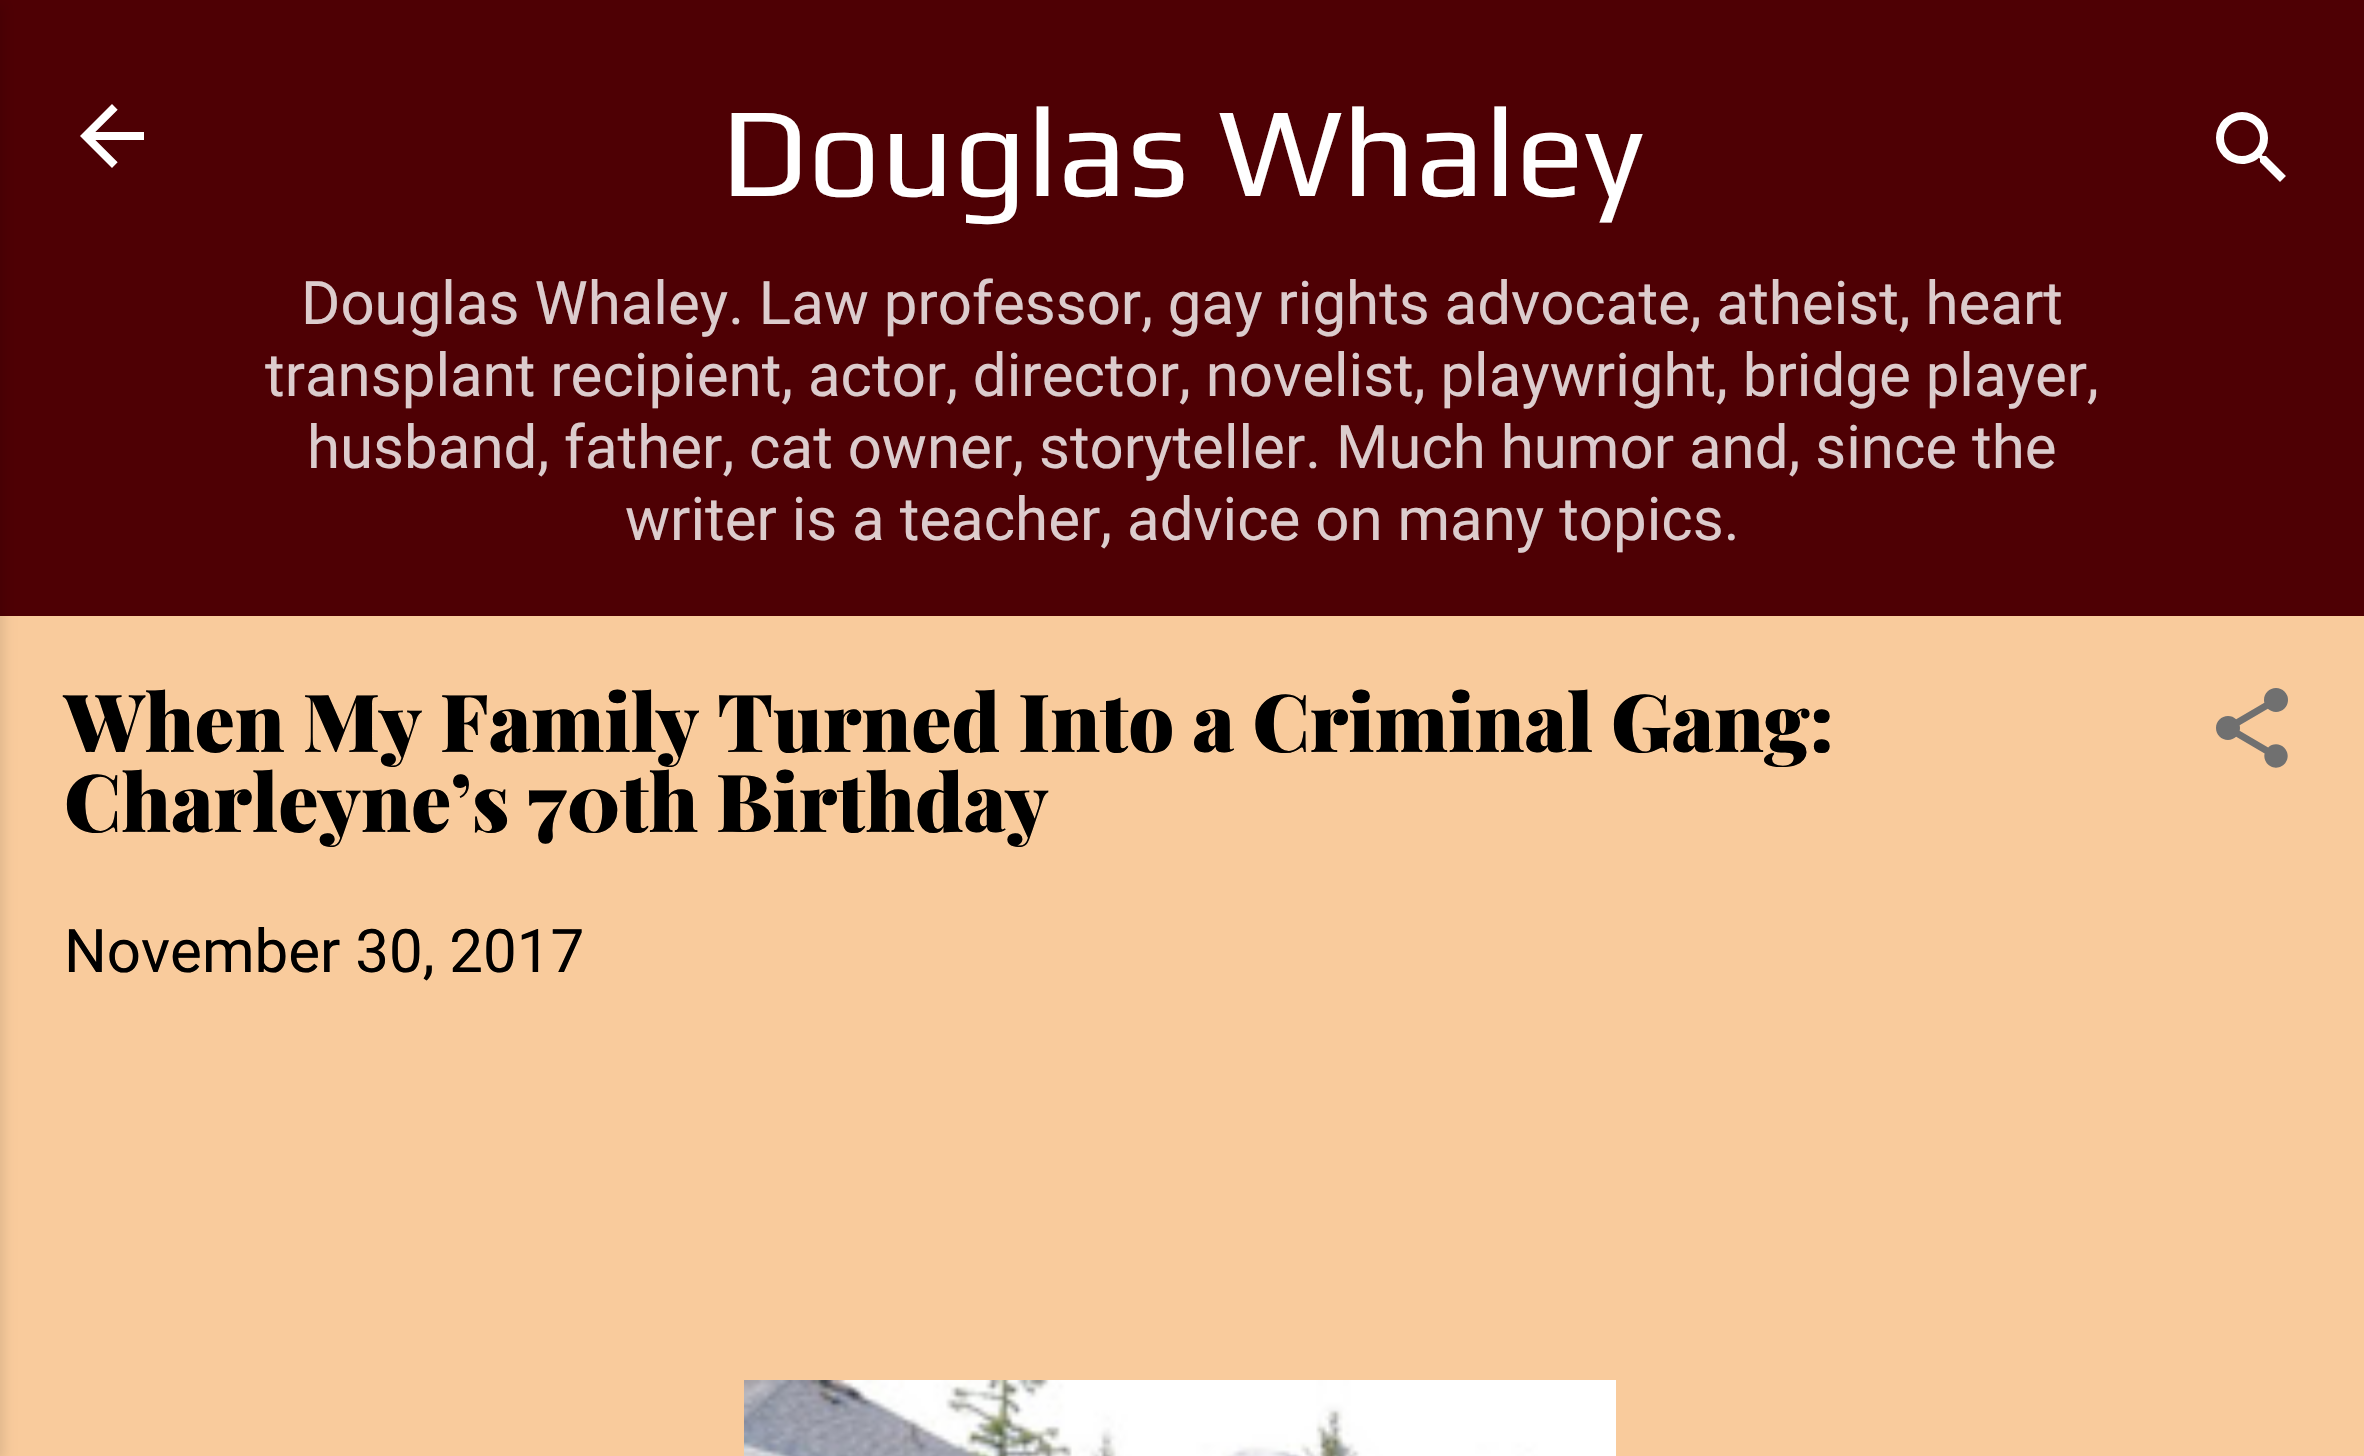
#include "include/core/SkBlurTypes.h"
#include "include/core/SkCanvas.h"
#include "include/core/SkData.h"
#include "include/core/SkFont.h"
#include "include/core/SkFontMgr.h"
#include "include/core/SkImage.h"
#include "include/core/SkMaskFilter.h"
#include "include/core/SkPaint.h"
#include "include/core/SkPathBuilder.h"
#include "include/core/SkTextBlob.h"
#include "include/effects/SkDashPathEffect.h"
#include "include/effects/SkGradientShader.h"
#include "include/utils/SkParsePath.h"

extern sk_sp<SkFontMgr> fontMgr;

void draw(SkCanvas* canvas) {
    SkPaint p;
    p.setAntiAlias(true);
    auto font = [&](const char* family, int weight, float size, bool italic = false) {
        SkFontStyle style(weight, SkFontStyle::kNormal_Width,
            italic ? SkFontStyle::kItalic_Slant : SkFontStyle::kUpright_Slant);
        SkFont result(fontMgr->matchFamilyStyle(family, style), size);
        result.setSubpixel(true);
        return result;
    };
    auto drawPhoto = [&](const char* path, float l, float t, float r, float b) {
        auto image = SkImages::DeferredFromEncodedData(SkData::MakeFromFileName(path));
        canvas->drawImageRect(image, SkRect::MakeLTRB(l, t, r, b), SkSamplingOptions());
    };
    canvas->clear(0xFF4E0004);
    p.setColor(0xFFF9CB9C);
    canvas->drawRect(SkRect::MakeLTRB(0, 616, 2364, 1456), p);
    p.setColor(0x1A000000);
    p.setMaskFilter(SkMaskFilter::MakeBlur(kNormal_SkBlurStyle, 6));
    canvas->drawRect(SkRect::MakeLTRB(-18, 4, 4, 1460), p);
    p.setMaskFilter(nullptr);
    drawPhoto("media/1.png", 80, 104, 144, 168);
    auto font1 = font("Play", 400, 128);
    p.setColor(0xFFFFFFFF);
    canvas->drawString("Douglas Whaley", 721, 196, font1, p);
    auto font2 = font("Roboto", 400, 60);
    p.setColor(0xFFDCCCCD);
    {
        const struct { const char* s; float x, y; } items[] = {
            {"Douglas Whaley. Law professor, gay rights advocate, atheist, heart", 301, 324},
            {"transplant recipient, actor, director, novelist, playwright, bridge player,", 265, 396},
            {"husband, father, cat owner, storyteller. Much humor and, since the", 307, 468},
            {"writer is a teacher, advice on many topics.", 625, 540},
        };
        for (auto [s, x, y] : items) {
            canvas->drawString(s, x, y, font2, p);
        }
    }
    drawPhoto("media/2.png", 2216, 112, 2286, 182);
    auto font3 = font("Playfair Display", 900, 80);
    p.setColor(0xFF000000);
    canvas->drawString("When My Family Turned Into a Criminal Gang:", 64, 752, font3, p);
    canvas->drawString("Charleyne’s 70th Birthday", 64, 832, font3, p);
    drawPhoto("media/3.png", 2216, 688, 2288, 768);
    canvas->drawString("November 30, 2017", 64, 972, font2, p);
    drawPhoto("media/4.png", 744, 1380, 1616, 1456);
}
